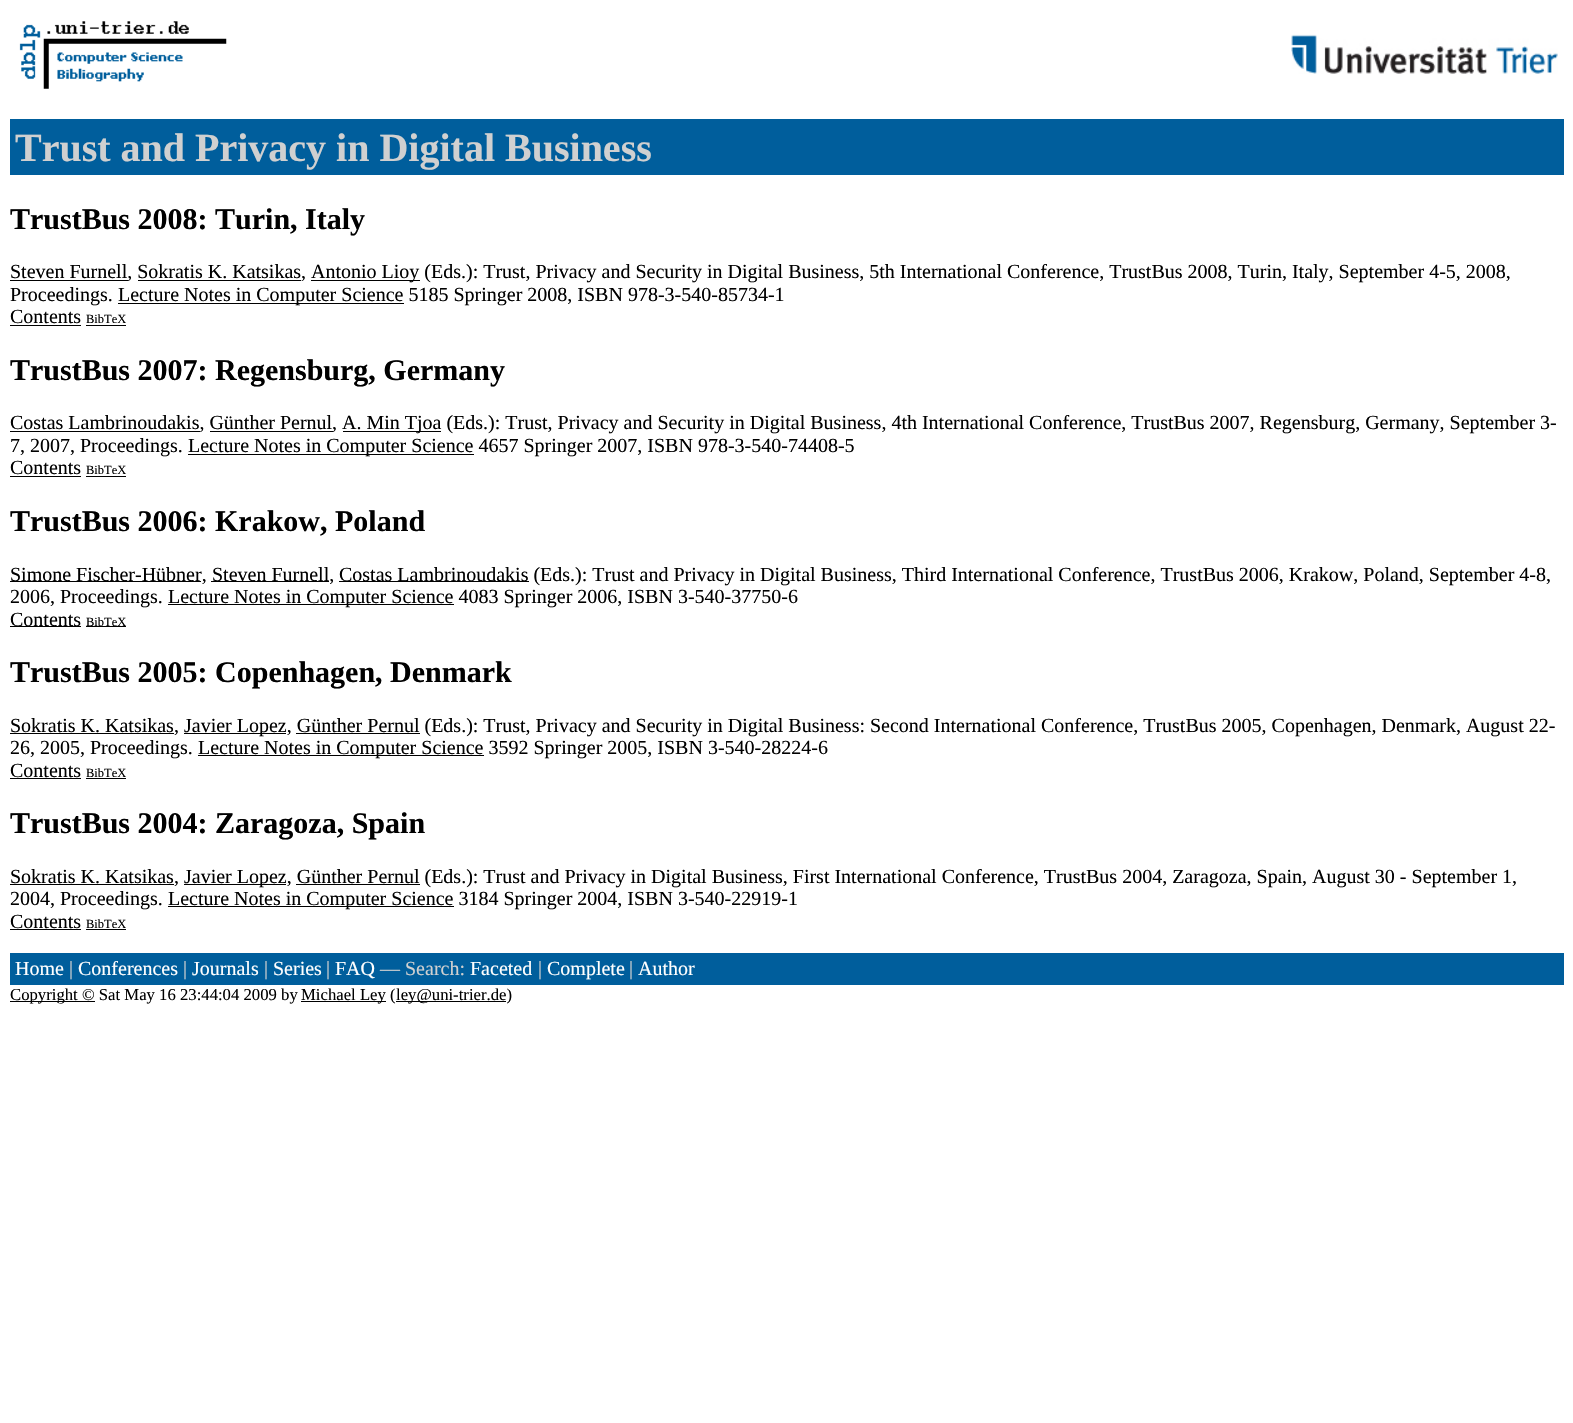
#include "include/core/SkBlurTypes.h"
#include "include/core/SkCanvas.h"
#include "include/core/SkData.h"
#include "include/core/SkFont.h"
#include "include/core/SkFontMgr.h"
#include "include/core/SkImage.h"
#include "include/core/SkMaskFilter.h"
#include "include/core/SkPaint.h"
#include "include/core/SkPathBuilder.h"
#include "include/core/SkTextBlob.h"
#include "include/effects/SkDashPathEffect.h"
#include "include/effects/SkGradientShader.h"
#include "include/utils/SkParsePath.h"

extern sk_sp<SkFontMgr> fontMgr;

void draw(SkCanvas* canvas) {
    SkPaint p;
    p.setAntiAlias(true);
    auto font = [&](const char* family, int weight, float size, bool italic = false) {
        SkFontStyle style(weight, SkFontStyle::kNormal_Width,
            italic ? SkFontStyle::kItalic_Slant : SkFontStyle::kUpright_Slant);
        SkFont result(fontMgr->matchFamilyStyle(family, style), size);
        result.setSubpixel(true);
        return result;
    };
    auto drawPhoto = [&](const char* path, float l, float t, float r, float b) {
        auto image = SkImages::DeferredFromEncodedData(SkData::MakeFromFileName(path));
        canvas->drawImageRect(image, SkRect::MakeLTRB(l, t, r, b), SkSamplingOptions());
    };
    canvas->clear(0xFFFFFFFF);
    drawPhoto("media/1.png", 19, 21, 227, 89);
    drawPhoto("media/2.png", 1291, 30, 1558, 74);
    p.setColor(0xFF005E9C);
    canvas->drawRect(SkRect::MakeLTRB(10, 119, 1564, 175), p);
    auto font1 = font("Liberation Serif", 700, 40);
    p.setColor(0xFFD0D0D0);
    canvas->drawString("Trust and Privacy in Digital Business", 15, 161, font1, p);
    auto font2 = font("Liberation Serif", 700, 30);
    p.setColor(0xFF000000);
    canvas->drawString("TrustBus 2008: Turin, Italy", 10, 229, font2, p);
    canvas->drawRect(SkRect::MakeLTRB(10, 280, 128, 281), p);
    auto font3 = font("Liberation Serif", 400, 20);
    canvas->drawString("Steven Furnell, Sokratis K. Katsikas,", 10, 278, font3, p);
    canvas->drawRect(SkRect::MakeLTRB(311, 280, 420, 281), p);
    canvas->drawString("Antonio Lioy (Eds.): Trust, Privacy and Security in Digital Business, 5th International Conference, TrustBus 2008, Turin, Italy, September 4-5, 2008,", 311, 278, font3, p);
    canvas->drawRect(SkRect::MakeLTRB(138, 280, 301, 281), p);
    canvas->drawString("Proceedings.", 10, 301, font3, p);
    canvas->drawRect(SkRect::MakeLTRB(118, 303, 404, 304), p);
    canvas->drawString("Lecture Notes in Computer Science 5185 Springer 2008, ISBN 978-3-540-85734-1", 118, 301, font3, p);
    canvas->drawString("Contents", 10, 323, font3, p);
    canvas->drawRect(SkRect::MakeLTRB(10, 325, 81, 326), p);
    auto font4 = font("Liberation Serif", 400, 12.5f);
    canvas->drawString("BibTeX", 86, 323, font4, p);
    canvas->drawRect(SkRect::MakeLTRB(86, 325, 126, 326), p);
    canvas->drawString("TrustBus 2007: Regensburg, Germany", 10, 380, font2, p);
    canvas->drawRect(SkRect::MakeLTRB(10, 431, 200, 432), p);
    canvas->drawString("Costas Lambrinoudakis, Günther Pernul", 10, 429, font3, p);
    canvas->drawRect(SkRect::MakeLTRB(210, 431, 333, 432), p);
    canvas->drawString(",", 332, 429, font3, p);
    canvas->drawRect(SkRect::MakeLTRB(343, 431, 441, 432), p);
    canvas->drawString("A. Min Tjoa (Eds.): Trust, Privacy and Security in Digital Business, 4th International Conference, TrustBus 2007, Regensburg, Germany, September 3-", 342, 429, font3, p);
    canvas->drawString("7, 2007, Proceedings.", 10, 452, font3, p);
    canvas->drawRect(SkRect::MakeLTRB(188, 454, 474, 455), p);
    canvas->drawString("Lecture Notes in Computer Science 4657 Springer 2007, ISBN 978-3-540-74408-5", 188, 452, font3, p);
    canvas->drawString("Contents", 10, 474, font3, p);
    canvas->drawRect(SkRect::MakeLTRB(10, 476, 81, 477), p);
    canvas->drawString("BibTeX", 86, 474, font4, p);
    canvas->drawRect(SkRect::MakeLTRB(86, 476, 126, 477), p);
    canvas->drawString("TrustBus 2006: Krakow, Poland", 10, 531, font2, p);
    canvas->drawRect(SkRect::MakeLTRB(10, 581, 201, 582), p);
    canvas->drawString("Simone Fischer-Hübner,", 10, 581, font3, p);
    canvas->drawRect(SkRect::MakeLTRB(211, 581, 329, 582), p);
    canvas->drawString("Steven Furnell,", 212, 581, font3, p);
    canvas->drawRect(SkRect::MakeLTRB(339, 581, 529, 582), p);
    canvas->drawString("Costas Lambrinoudakis (Eds.): Trust and Privacy in Digital Business, Third International Conference, TrustBus 2006, Krakow, Poland, September 4-8,", 339, 581, font3, p);
    canvas->drawString("2006, Proceedings.", 10, 603, font3, p);
    canvas->drawRect(SkRect::MakeLTRB(168, 604, 454, 605), p);
    canvas->drawString("Lecture Notes in Computer Science 4083 Springer 2006, ISBN 3-540-37750-6", 168, 603, font3, p);
    canvas->drawRect(SkRect::MakeLTRB(10, 626, 81, 627), p);
    canvas->drawString("Contents", 10, 626, font3, p);
    canvas->drawRect(SkRect::MakeLTRB(86, 626, 126, 627), p);
    canvas->drawString("BibTeX", 86, 626, font4, p);
    canvas->drawString("TrustBus 2005: Copenhagen, Denmark", 10, 682, font2, p);
    canvas->drawRect(SkRect::MakeLTRB(10, 733, 174, 734), p);
    canvas->drawString("Sokratis K. Katsikas,", 10, 732, font3, p);
    canvas->drawRect(SkRect::MakeLTRB(184, 733, 286, 734), p);
    canvas->drawString("Javier Lopez, Günther Pernul (Eds.): Trust, Privacy and Security in Digital Business: Second International Conference, TrustBus 2005, Copenhagen, Denmark, August 22-", 184, 732, font3, p);
    canvas->drawRect(SkRect::MakeLTRB(296, 733, 420, 734), p);
    canvas->drawString("26, 2005, Proceedings.", 10, 754, font3, p);
    canvas->drawRect(SkRect::MakeLTRB(198, 755, 484, 756), p);
    canvas->drawString("Lecture Notes in Computer Science 3592 Springer 2005, ISBN 3-540-28224-6", 198, 754, font3, p);
    canvas->drawString("Contents", 10, 777, font3, p);
    canvas->drawRect(SkRect::MakeLTRB(10, 778, 81, 779), p);
    canvas->drawString("BibTeX", 86, 777, font4, p);
    canvas->drawRect(SkRect::MakeLTRB(86, 778, 126, 779), p);
    canvas->drawString("TrustBus 2004: Zaragoza, Spain", 10, 833, font2, p);
    canvas->drawRect(SkRect::MakeLTRB(10, 884, 174, 885), p);
    canvas->drawString("Sokratis K. Katsikas,", 10, 883, font3, p);
    canvas->drawRect(SkRect::MakeLTRB(184, 884, 286, 885), p);
    canvas->drawString("Javier Lopez, Günther Pernul (Eds.): Trust and Privacy in Digital Business, First International Conference, TrustBus 2004, Zaragoza, Spain, August 30 - September 1,", 184, 883, font3, p);
    canvas->drawRect(SkRect::MakeLTRB(296, 884, 420, 885), p);
    canvas->drawString("2004, Proceedings.", 10, 905, font3, p);
    canvas->drawRect(SkRect::MakeLTRB(168, 906, 454, 907), p);
    canvas->drawString("Lecture Notes in Computer Science 3184 Springer 2004, ISBN 3-540-22919-1", 168, 905, font3, p);
    canvas->drawString("Contents", 10, 928, font3, p);
    canvas->drawRect(SkRect::MakeLTRB(10, 929, 81, 930), p);
    canvas->drawString("BibTeX", 86, 928, font4, p);
    canvas->drawRect(SkRect::MakeLTRB(86, 929, 126, 930), p);
    p.setColor(0xFF005E9C);
    canvas->drawRect(SkRect::MakeLTRB(10, 953, 1564, 985), p);
    p.setColor(0xFFFFFFFF);
    canvas->drawString("Home", 15, 975, font3, p);
    p.setColor(0xFFD0D0D0);
    canvas->drawString("|", 69, 975, font3, p);
    p.setColor(0xFFFFFFFF);
    canvas->drawString("Conferences", 78, 975, font3, p);
    p.setColor(0xFFD0D0D0);
    canvas->drawString("|", 183, 975, font3, p);
    p.setColor(0xFFFFFFFF);
    canvas->drawString("Journals", 192, 975, font3, p);
    p.setColor(0xFFD0D0D0);
    canvas->drawString("|", 264, 975, font3, p);
    p.setColor(0xFFFFFFFF);
    canvas->drawString("Series", 273, 975, font3, p);
    p.setColor(0xFFD0D0D0);
    canvas->drawString("|", 326, 975, font3, p);
    p.setColor(0xFFFFFFFF);
    canvas->drawString("FAQ", 335, 975, font3, p);
    p.setColor(0xFFD0D0D0);
    canvas->drawString("— Search:", 380, 975, font3, p);
    p.setColor(0xFFFFFFFF);
    canvas->drawString("Faceted", 470, 975, font3, p);
    p.setColor(0xFFD0D0D0);
    canvas->drawString("|", 538, 975, font3, p);
    p.setColor(0xFFFFFFFF);
    canvas->drawString("Complete", 547, 975, font3, p);
    p.setColor(0xFFD0D0D0);
    canvas->drawString("|", 629, 975, font3, p);
    p.setColor(0xFFFFFFFF);
    canvas->drawString("Author", 638, 975, font3, p);
    p.setColor(0xFF000000);
    canvas->drawRect(SkRect::MakeLTRB(10, 1001, 95, 1002), p);
    auto font5 = font("Liberation Serif", 400, 16.7f);
    canvas->drawString("Copyright © Sat May 16 23:44:04 2009 by", 10, 1000, font5, p);
    canvas->drawRect(SkRect::MakeLTRB(301, 1001, 386, 1002), p);
    canvas->drawString("Michael Ley (", 301, 1000, font5, p);
    canvas->drawRect(SkRect::MakeLTRB(396, 1001, 506, 1002), p);
    canvas->drawString("ley@uni-trier.de)", 396, 1000, font5, p);
}
